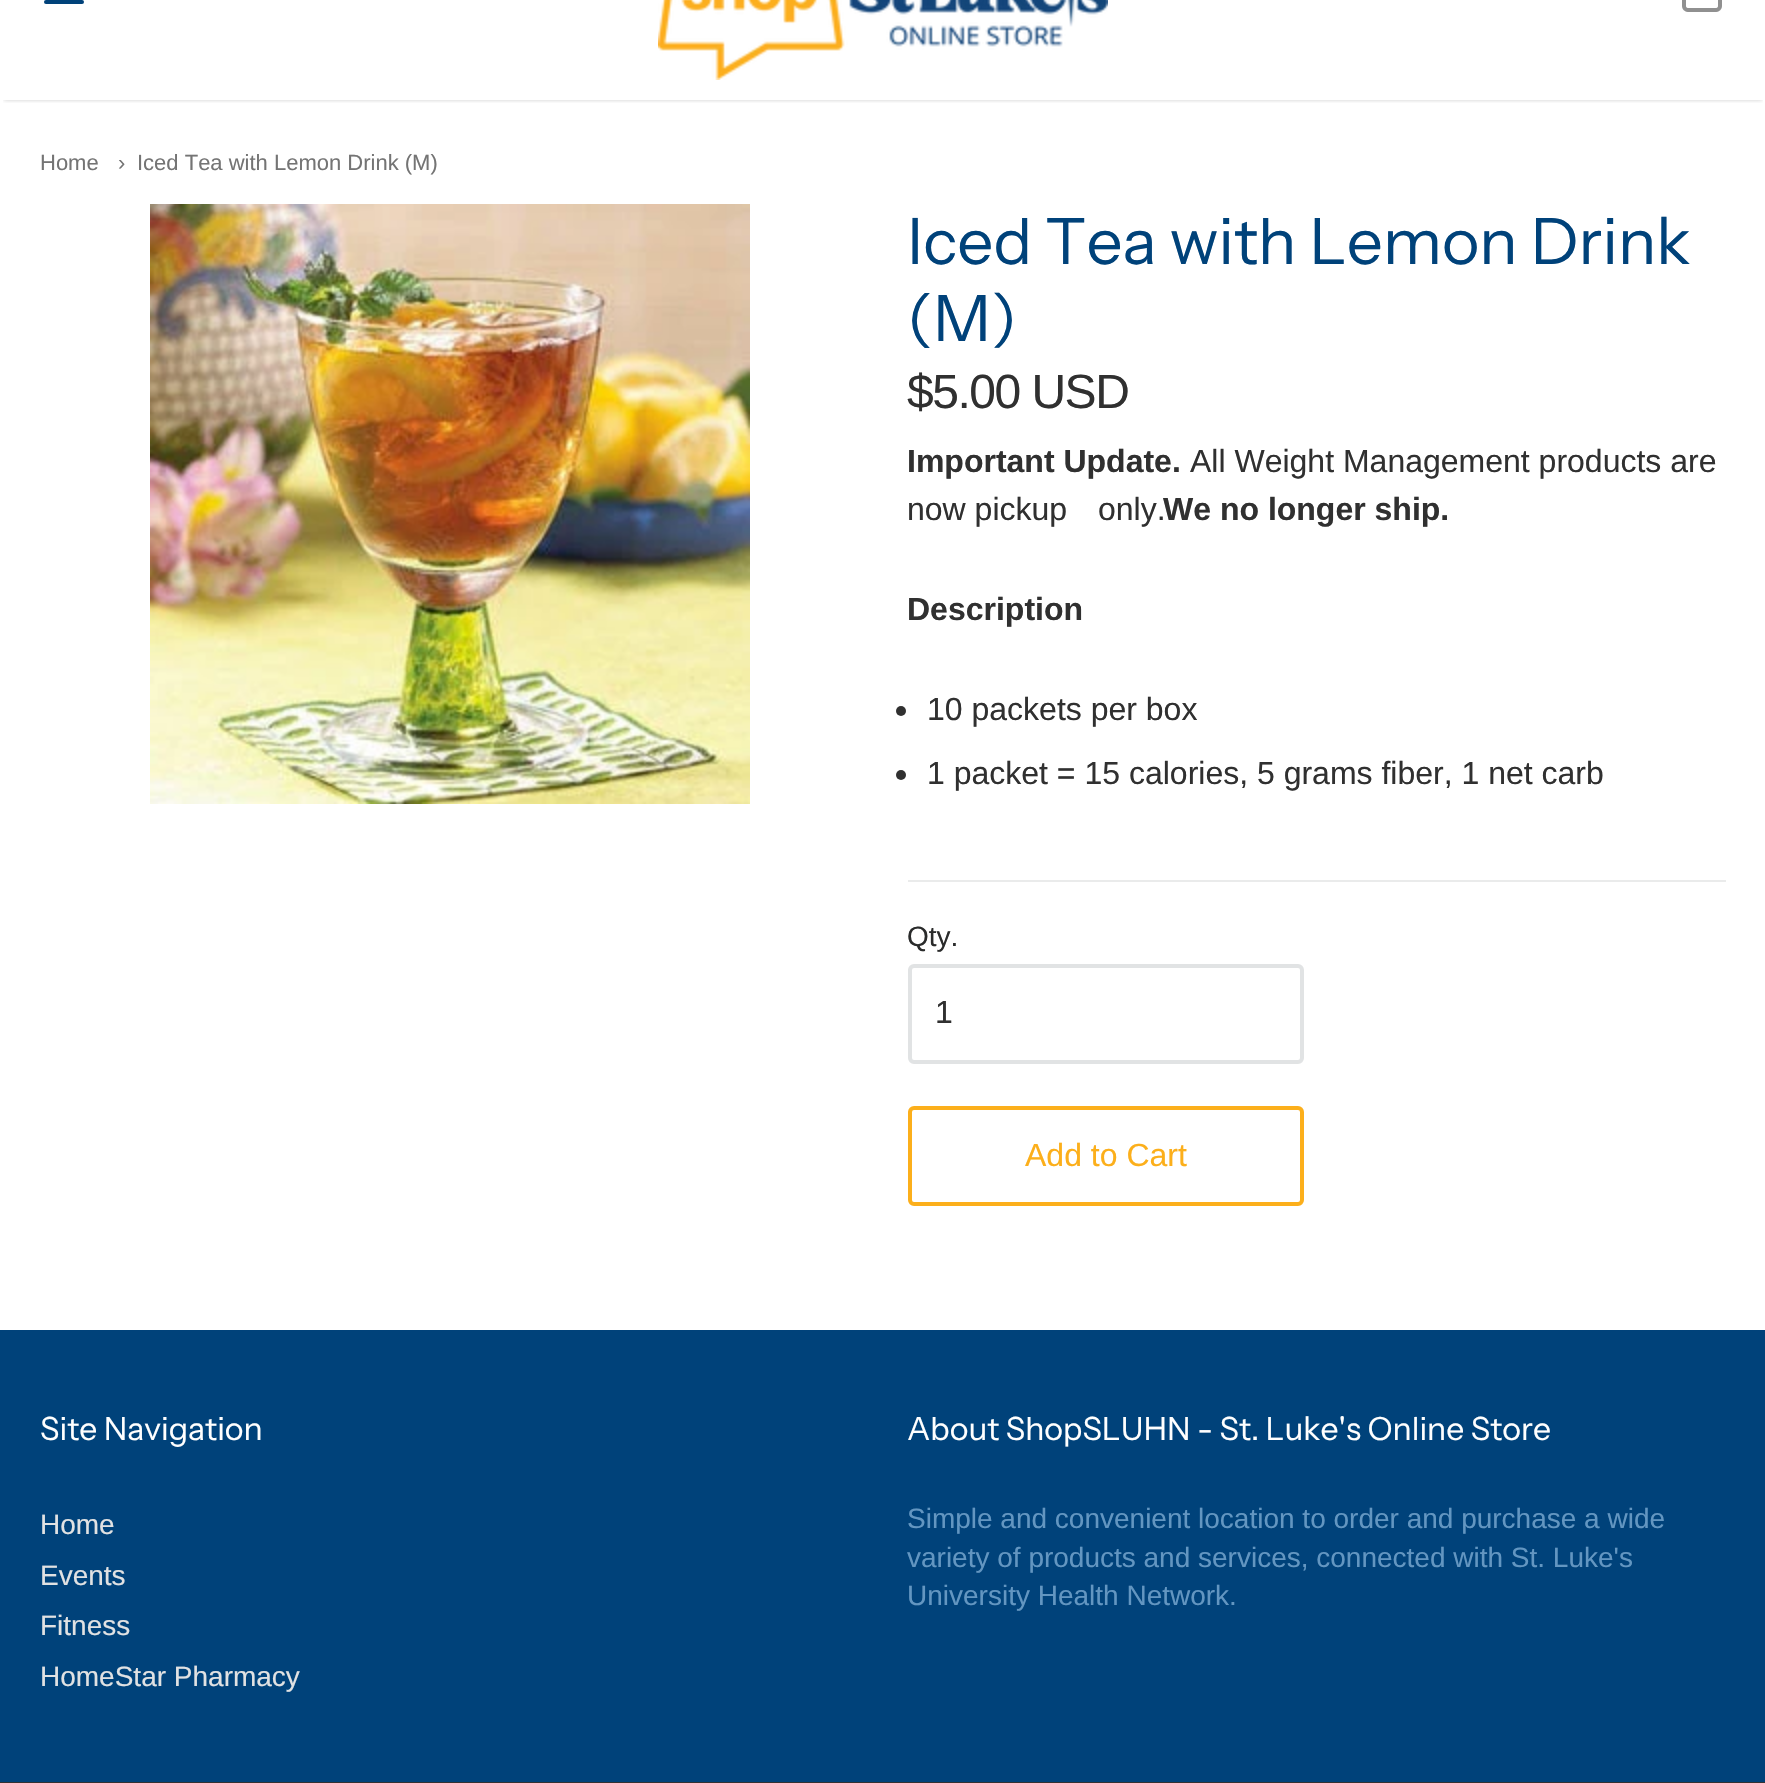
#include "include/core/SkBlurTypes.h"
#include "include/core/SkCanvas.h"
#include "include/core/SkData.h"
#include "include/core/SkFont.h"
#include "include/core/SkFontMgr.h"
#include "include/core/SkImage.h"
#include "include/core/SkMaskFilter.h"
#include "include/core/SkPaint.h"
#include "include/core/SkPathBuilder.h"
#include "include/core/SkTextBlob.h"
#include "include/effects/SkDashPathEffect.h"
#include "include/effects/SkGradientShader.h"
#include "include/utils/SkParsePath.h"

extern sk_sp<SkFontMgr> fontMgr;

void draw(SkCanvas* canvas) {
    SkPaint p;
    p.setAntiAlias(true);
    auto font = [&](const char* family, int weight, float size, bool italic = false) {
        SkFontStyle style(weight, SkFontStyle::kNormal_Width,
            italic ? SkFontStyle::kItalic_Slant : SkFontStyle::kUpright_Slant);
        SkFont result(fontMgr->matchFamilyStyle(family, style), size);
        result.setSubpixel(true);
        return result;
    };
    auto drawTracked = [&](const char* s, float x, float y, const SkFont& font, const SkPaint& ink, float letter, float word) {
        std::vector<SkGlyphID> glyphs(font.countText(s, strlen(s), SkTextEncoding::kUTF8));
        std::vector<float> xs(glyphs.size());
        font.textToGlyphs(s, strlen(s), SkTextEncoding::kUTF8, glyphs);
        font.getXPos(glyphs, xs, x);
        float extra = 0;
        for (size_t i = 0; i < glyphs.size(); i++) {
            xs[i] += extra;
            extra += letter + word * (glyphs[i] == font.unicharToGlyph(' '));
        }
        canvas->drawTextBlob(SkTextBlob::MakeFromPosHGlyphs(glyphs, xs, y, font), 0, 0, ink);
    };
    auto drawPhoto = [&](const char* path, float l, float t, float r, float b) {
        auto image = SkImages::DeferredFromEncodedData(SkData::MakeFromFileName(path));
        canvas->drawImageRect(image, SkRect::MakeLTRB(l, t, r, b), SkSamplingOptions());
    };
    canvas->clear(0xFFFFFFFF);
    canvas->save();
    canvas->clipRect(SkRect::MakeLTRB(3, 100, 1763, 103));
    p.setColor(0x33000000);
    p.setMaskFilter(SkMaskFilter::MakeBlur(kNormal_SkBlurStyle, 2));
    canvas->drawRect(SkRect::MakeLTRB(4, -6, 1762, 100), p);
    p.setMaskFilter(nullptr);
    canvas->restore();
    p.setStyle(SkPaint::kStroke_Style);
    p.setStrokeWidth(4);
    p.setStrokeCap(SkPaint::kRound_Cap);
    p.setStrokeJoin(SkPaint::kRound_Join);
    p.setColor(0xFF00427A);
    canvas->drawPath(SkPathBuilder().moveTo(46, 2).lineTo(82, 2).detach(), p);
    drawPhoto("media/1.png", 658, 0, 1108, 80);
    drawPhoto("media/2.png", 1682, 0, 1722, 12);
    auto font1 = font("Liberation Sans", 400, 22);
    p.setStyle(SkPaint::kFill_Style);
    p.setColor(0xFF747474);
    {
        const struct { const char* s; float x, y; } items[] = {
            {"Home", 40, 170},
            {"›", 118, 170},
            {"Iced Tea with Lemon Drink (M)", 137, 170},
        };
        for (auto [s, x, y] : items) {
            canvas->drawString(s, x, y, font1, p);
        }
    }
    drawPhoto("media/3.png", 150, 204, 750, 804);
    auto font2 = font("Instrument Sans", 400, 64);
    p.setColor(0xFF00427A);
    canvas->drawString("Iced Tea with Lemon Drink", 907, 264, font2, p);
    canvas->drawString("(M)", 907, 341, font2, p);
    auto font3 = font("Liberation Sans", 400, 48);
    p.setColor(0xFF303030);
    drawTracked("$5.00 USD", 907, 408, font3, p, -1.5f, 0);
    auto font4 = font("Liberation Sans", 700, 32);
    canvas->drawString("Important Update.", 907, 472, font4, p);
    auto font5 = font("Liberation Sans", 400, 32);
    canvas->drawString("All Weight Management products are", 1190, 472, font5, p);
    canvas->drawString("now pick‑up", 907, 520, font5, p);
    canvas->drawString("only.", 1098, 520, font5, p);
    canvas->drawString("We no longer ship.", 1163, 520, font4, p);
    canvas->drawString("Description", 907, 620, font4, p);
    canvas->drawCircle(901, 711, 5, p);
    canvas->drawString("10 packets per box", 927, 720, font5, p);
    canvas->drawCircle(901, 775, 5, p);
    canvas->drawString("1 packet = 15 calories, 5 grams fiber, 1 net carb", 927, 784, font5, p);
    p.setColor(0xFFEAEBEB);
    canvas->drawRect(SkRect::MakeLTRB(908, 880, 1726, 882), p);
    auto font6 = font("Liberation Sans", 400, 28);
    p.setColor(0xFF2A2B2B);
    canvas->drawString("Qty.", 907, 946, font6, p);
    p.setStyle(SkPaint::kStroke_Style);
    p.setStrokeCap(SkPaint::kButt_Cap);
    p.setStrokeJoin(SkPaint::kMiter_Join);
    p.setColor(0xFFE1E3E4);
    canvas->drawRoundRect(SkRect::MakeLTRB(910, 966, 1302, 1062), 4, 4, p);
    p.setStyle(SkPaint::kFill_Style);
    p.setColor(0xFF303030);
    canvas->drawString("1", 935, 1023, font5, p);
    p.setStyle(SkPaint::kStroke_Style);
    p.setColor(0xFFFCAF1B);
    canvas->drawRoundRect(SkRect::MakeLTRB(910, 1108, 1302, 1204), 4, 4, p);
    p.setStyle(SkPaint::kFill_Style);
    canvas->drawString("Add to Cart", 1025, 1166, font5, p);
    p.setColor(0xFF00427A);
    canvas->drawRect(SkRect::MakeLTRB(0, 1330, 1765, 1782), p);
    auto font7 = font("Instrument Sans", 400, 32);
    p.setColor(0xFFFFFFFF);
    canvas->drawString("Site Navigation", 40, 1440, font7, p);
    p.setColor(0xFFE1E2E3);
    {
        const struct { const char* s; float x, y; } items[] = {
            {"Home", 40, 1534},
            {"Events", 40, 1585},
            {"Fitness", 40, 1635},
            {"HomeStar Pharmacy", 40, 1686},
        };
        for (auto [s, x, y] : items) {
            canvas->drawString(s, x, y, font6, p);
        }
    }
    p.setColor(0xFFFFFFFF);
    canvas->drawString("About ShopSLUHN - St. Luke's Online Store", 907, 1440, font7, p);
    p.setColor(0xFF6396C1);
    {
        const struct { const char* s; float x, y; } items[] = {
            {"Simple and convenient location to order and purchase a wide", 907, 1528},
            {"variety of products and services, connected with St. Luke's", 907, 1567},
            {"University Health Network.", 907, 1605},
        };
        for (auto [s, x, y] : items) {
            canvas->drawString(s, x, y, font6, p);
        }
    }
    p.setColor(0xFF333132);
    canvas->drawRect(SkRect::MakeLTRB(0, 1782, 1765, 1783), p);
}
